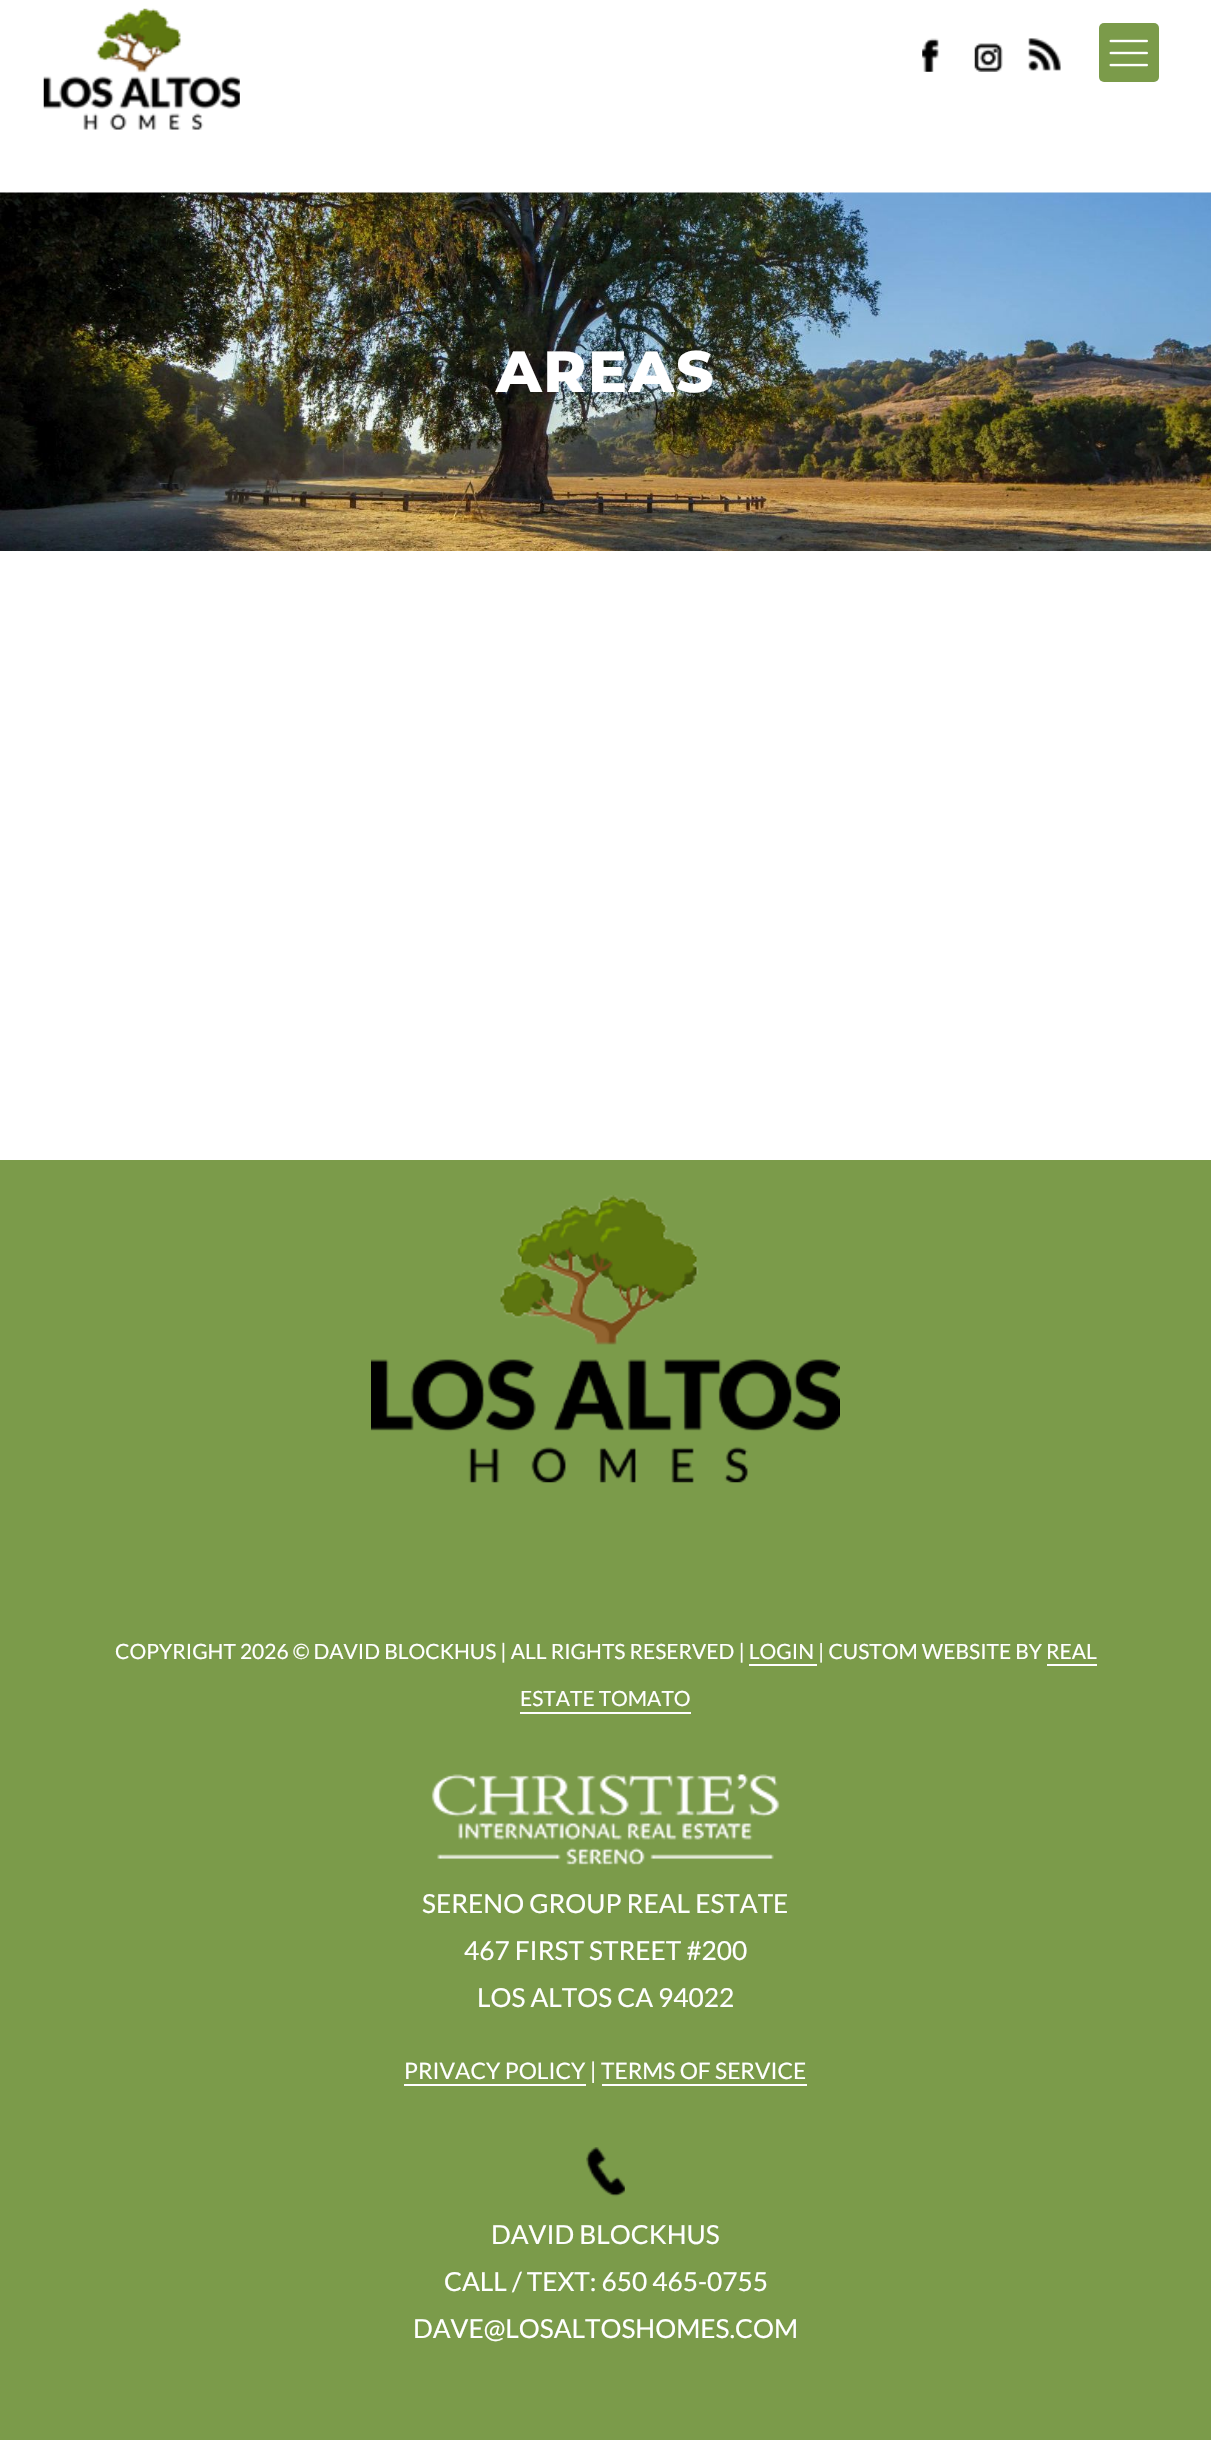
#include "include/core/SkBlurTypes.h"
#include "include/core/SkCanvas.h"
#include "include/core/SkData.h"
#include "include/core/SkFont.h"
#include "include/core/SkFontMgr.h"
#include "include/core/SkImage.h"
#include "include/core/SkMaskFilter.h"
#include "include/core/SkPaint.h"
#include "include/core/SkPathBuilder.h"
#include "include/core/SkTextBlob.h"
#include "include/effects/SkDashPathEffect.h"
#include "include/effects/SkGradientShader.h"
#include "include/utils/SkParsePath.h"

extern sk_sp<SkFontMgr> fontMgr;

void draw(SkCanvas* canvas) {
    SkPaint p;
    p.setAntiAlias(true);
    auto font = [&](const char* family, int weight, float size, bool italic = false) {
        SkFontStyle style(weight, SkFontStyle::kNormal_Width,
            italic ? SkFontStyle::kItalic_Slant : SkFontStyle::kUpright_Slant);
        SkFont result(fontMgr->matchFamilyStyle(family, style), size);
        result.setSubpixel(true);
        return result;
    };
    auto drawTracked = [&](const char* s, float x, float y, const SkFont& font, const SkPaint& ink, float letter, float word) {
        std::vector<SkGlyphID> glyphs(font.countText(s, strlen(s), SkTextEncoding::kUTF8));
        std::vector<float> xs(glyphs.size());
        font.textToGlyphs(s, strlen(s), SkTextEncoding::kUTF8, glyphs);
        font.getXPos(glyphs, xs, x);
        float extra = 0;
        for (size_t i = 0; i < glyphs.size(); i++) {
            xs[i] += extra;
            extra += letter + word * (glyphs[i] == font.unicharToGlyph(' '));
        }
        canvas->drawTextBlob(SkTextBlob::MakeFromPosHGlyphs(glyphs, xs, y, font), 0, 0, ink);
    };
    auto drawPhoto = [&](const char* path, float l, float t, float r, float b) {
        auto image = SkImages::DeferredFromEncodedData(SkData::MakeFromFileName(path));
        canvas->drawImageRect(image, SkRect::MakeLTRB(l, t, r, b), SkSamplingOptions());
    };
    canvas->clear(0xFFFFFFFF);
    drawPhoto("media/1.png", 43, 8, 240, 130);
    drawPhoto("media/2.png", 922, 38, 939, 72);
    drawPhoto("media/3.png", 974, 43, 1003, 72);
    drawPhoto("media/4.png", 1028, 38, 1061, 71);
    p.setColor(0xFF7B9B4A);
    canvas->drawRoundRect(SkRect::MakeLTRB(1099, 23, 1159, 82), 5, 5, p);
    drawPhoto("media/5.png", 1109, 39, 1148, 67);
    drawPhoto("media/6.png", 0, 192, 1211, 551);
    auto font1 = font("Montserrat", 800, 58);
    p.setColor(0xFFFFFFFF);
    drawTracked("AREAS", 496, 392, font1, p, 1.75f, 0);
    p.setColor(0xFF7B9B4A);
    canvas->drawRect(SkRect::MakeLTRB(0, 1160, 1211, 2440), p);
    drawPhoto("media/7.png", 371, 1195, 840, 1483);
    auto font2 = font("Lato", 400, 21);
    p.setColor(0xFFFFFFFF);
    canvas->drawString("COPYRIGHT 2026 © DAVID BLOCKHUS | ALL RIGHTS RESERVED | LOGIN | CUSTOM WEBSITE BY REAL", 115, 1659, font2, p);
    canvas->drawRect(SkRect::MakeLTRB(749, 1664, 817, 1666), p);
    canvas->drawString("ESTATE TOMATO", 520, 1706, font2, p);
    canvas->drawRect(SkRect::MakeLTRB(1047, 1664, 1097, 1666), p);
    canvas->drawRect(SkRect::MakeLTRB(520, 1712, 691, 1714), p);
    drawPhoto("media/8.png", 431, 1774, 780, 1865);
    auto font3 = font("Lato", 400, 26.25f);
    {
        const struct { const char* s; float x, y; } items[] = {
            {"SERENO GROUP REAL ESTATE", 422, 1913},
            {"467 FIRST STREET #200", 464, 1960},
            {"LOS ALTOS CA 94022", 477, 2007},
        };
        for (auto [s, x, y] : items) {
            canvas->drawString(s, x, y, font3, p);
        }
    }
    auto font4 = font("Lato", 400, 22.75f);
    canvas->drawString("PRIVACY POLICY | TERMS OF SERVICE", 404, 2079, font4, p);
    canvas->drawRect(SkRect::MakeLTRB(404, 2084, 586, 2086), p);
    canvas->drawRect(SkRect::MakeLTRB(602, 2084, 807, 2086), p);
    drawPhoto("media/9.png", 586, 2147, 625, 2197);
    {
        const struct { const char* s; float x, y; } items[] = {
            {"DAVID BLOCKHUS", 491, 2244},
            {"CALL / TEXT: 650 465-0755", 444, 2291},
            {"DAVE@LOSALTOSHOMES.COM", 413, 2338},
        };
        for (auto [s, x, y] : items) {
            canvas->drawString(s, x, y, font3, p);
        }
    }
}
